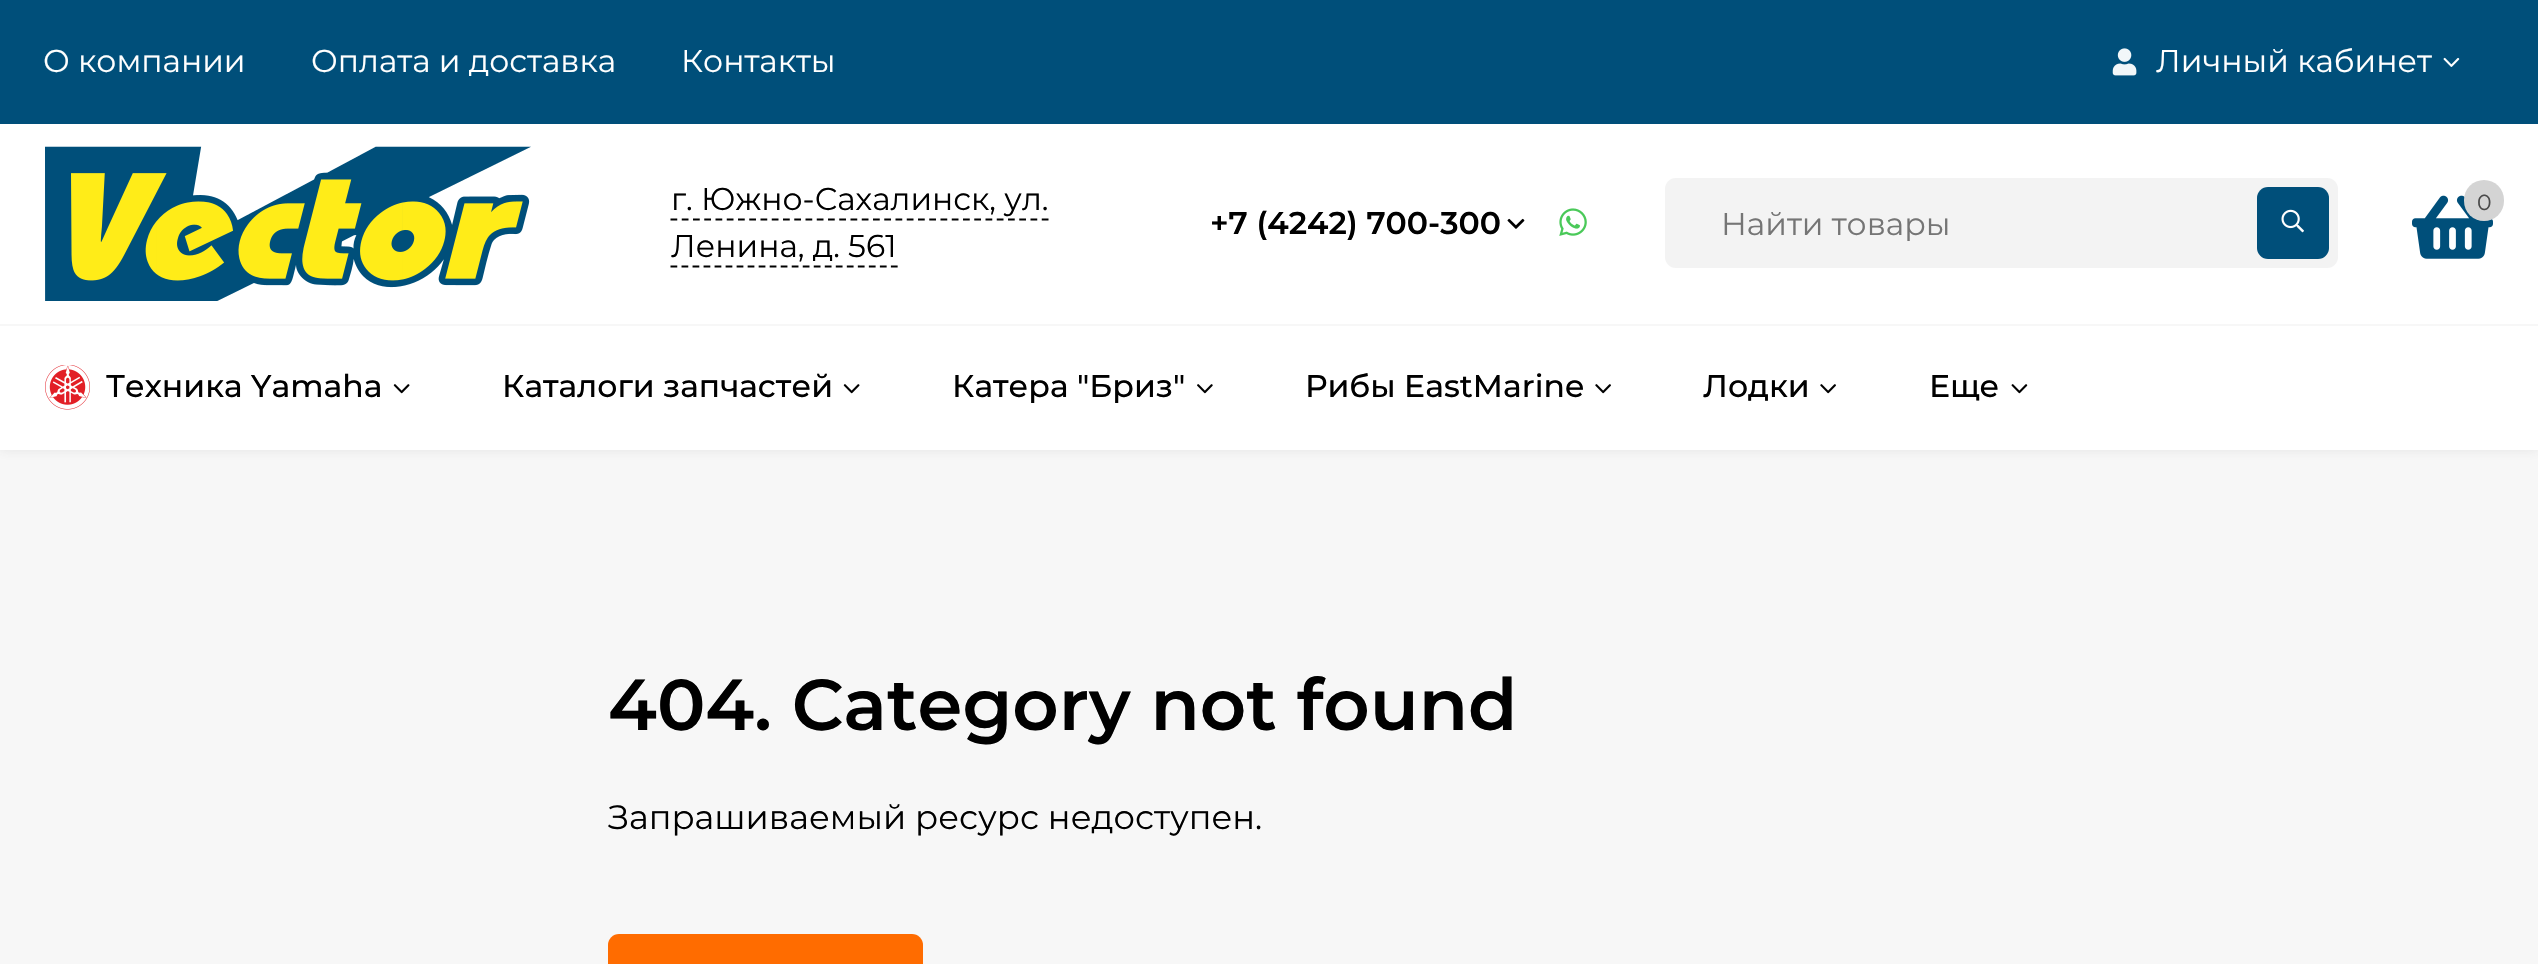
#include "include/core/SkBlurTypes.h"
#include "include/core/SkCanvas.h"
#include "include/core/SkData.h"
#include "include/core/SkFont.h"
#include "include/core/SkFontMgr.h"
#include "include/core/SkImage.h"
#include "include/core/SkMaskFilter.h"
#include "include/core/SkPaint.h"
#include "include/core/SkPathBuilder.h"
#include "include/core/SkTextBlob.h"
#include "include/effects/SkDashPathEffect.h"
#include "include/effects/SkGradientShader.h"
#include "include/utils/SkParsePath.h"

extern sk_sp<SkFontMgr> fontMgr;

void draw(SkCanvas* canvas) {
    SkPaint p;
    p.setAntiAlias(true);
    auto font = [&](const char* family, int weight, float size, bool italic = false) {
        SkFontStyle style(weight, SkFontStyle::kNormal_Width,
            italic ? SkFontStyle::kItalic_Slant : SkFontStyle::kUpright_Slant);
        SkFont result(fontMgr->matchFamilyStyle(family, style), size);
        result.setSubpixel(true);
        return result;
    };
    auto drawPhoto = [&](const char* path, float l, float t, float r, float b) {
        auto image = SkImages::DeferredFromEncodedData(SkData::MakeFromFileName(path));
        canvas->drawImageRect(image, SkRect::MakeLTRB(l, t, r, b), SkSamplingOptions());
    };
    canvas->clear(0xFFF7F7F7);
    p.setColor(0x1A404040);
    p.setMaskFilter(SkMaskFilter::MakeBlur(kNormal_SkBlurStyle, 5.5f));
    canvas->drawRect(SkRect::MakeLTRB(0, 0, 2538, 450), p);
    p.setMaskFilter(nullptr);
    p.setColor(0xFF004F7A);
    canvas->drawRect(SkRect::MakeLTRB(0, 0, 2538, 124), p);
    auto font1 = font("Montserrat", 400, 31.5f);
    p.setColor(0xFFFFFFFF);
    {
        const struct { const char* s; float x, y; } items[] = {
            {"О компании", 43, 72},
            {"Оплата и доставка", 311, 72},
            {"Контакты", 681, 72},
        };
        for (auto [s, x, y] : items) {
            canvas->drawString(s, x, y, font1, p);
        }
    }
    drawPhoto("media/1.png", 2112, 48, 2137, 76);
    canvas->drawString("Личный кабинет", 2156, 72, font1, p);
    drawPhoto("media/2.png", 2443, 57, 2460, 67);
    canvas->drawRect(SkRect::MakeLTRB(0, 124, 2538, 324), p);
    drawPhoto("media/3.png", 45, 146, 531, 301);
    p.setColor(0xFF000000);
    canvas->drawString("г. Южно-Сахалинск, ул.", 671, 210, font1, p);
    p.setStyle(SkPaint::kStroke_Style);
    p.setStrokeWidth(2.2f);
    p.setPathEffect(SkDashPathEffect::Make({{6.75f, 4.5f}}, 0));
    canvas->drawPath(SkPathBuilder().moveTo(670.5f, 219.5f).lineTo(1048.5f, 219.5f).detach(), p);
    p.setPathEffect(nullptr);
    p.setStyle(SkPaint::kFill_Style);
    canvas->drawString("Ленина, д. 561", 671, 257, font1, p);
    p.setStyle(SkPaint::kStroke_Style);
    p.setPathEffect(SkDashPathEffect::Make({{6.75f, 4.27f}}, 0));
    canvas->drawPath(SkPathBuilder().moveTo(670.5f, 266.5f).lineTo(898, 266.5f).detach(), p);
    p.setPathEffect(nullptr);
    drawPhoto("media/4.png", 2412, 195, 2493, 259);
    p.setStyle(SkPaint::kFill_Style);
    p.setColor(0xFFD4D4D4);
    canvas->drawRoundRect(SkRect::MakeLTRB(2464, 180, 2504, 221), 20, 20, p);
    auto font2 = font("Montserrat", 400, 22);
    p.setColor(0xFF4A4A4A);
    canvas->drawString("0", 2477, 210, font2, p);
    auto font3 = font("Montserrat", 600, 31.5f);
    p.setColor(0xFF000000);
    canvas->drawString("+7 (4242) 700-300", 1210, 234, font3, p);
    drawPhoto("media/5.png", 1507, 218, 1525, 229);
    drawPhoto("media/6.png", 1559, 208, 1587, 236);
    p.setColor(0xFFF3F3F3);
    canvas->drawRoundRect(SkRect::MakeLTRB(1665, 178, 2338, 268), 11, 11, p);
    p.setColor(0xFF757575);
    canvas->drawString("Найти товары", 1721, 235, font1, p);
    p.setColor(0xFF004F7A);
    canvas->drawRoundRect(SkRect::MakeLTRB(2257, 187, 2329, 259), 11, 11, p);
    drawPhoto("media/7.png", 2281, 209, 2304, 233);
    p.setColor(0xFFFFFFFF);
    canvas->drawRect(SkRect::MakeLTRB(0, 326, 2538, 450), p);
    p.setColor(0xFFF7F7F7);
    canvas->drawRect(SkRect::MakeLTRB(0, 324, 2538, 326), p);
    drawPhoto("media/8.png", 45, 365, 90, 410);
    auto font4 = font("Montserrat", 500, 31.5f);
    p.setColor(0xFF000000);
    canvas->drawString("Техника Yamaha", 106, 397, font4, p);
    drawPhoto("media/9.png", 393, 384, 410, 394);
    canvas->drawString("Каталоги запчастей", 502, 397, font4, p);
    drawPhoto("media/9.png", 843, 384, 860, 394);
    canvas->drawString("Катера \"Бриз\"", 952, 397, font4, p);
    drawPhoto("media/10.png", 1197, 384, 1213, 394);
    canvas->drawString("Рибы EastMarine", 1305, 397, font4, p);
    drawPhoto("media/11.png", 1595, 384, 1611, 394);
    canvas->drawString("Лодки", 1703, 397, font4, p);
    drawPhoto("media/11.png", 1820, 384, 1836, 394);
    canvas->drawString("Еще", 1929, 397, font4, p);
    drawPhoto("media/12.png", 2011, 384, 2028, 394);
    auto font5 = font("Montserrat", 600, 72);
    canvas->drawString("404. Category not found", 608, 730, font5, p);
    auto font6 = font("Montserrat", 400, 33.75f);
    canvas->drawString("Запрашиваемый ресурс недоступен.", 608, 829, font6, p);
    p.setColor(0xFFFF6C00);
    canvas->drawRoundRect(SkRect::MakeLTRB(608, 934, 923, 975), 11, 11, p);
}
